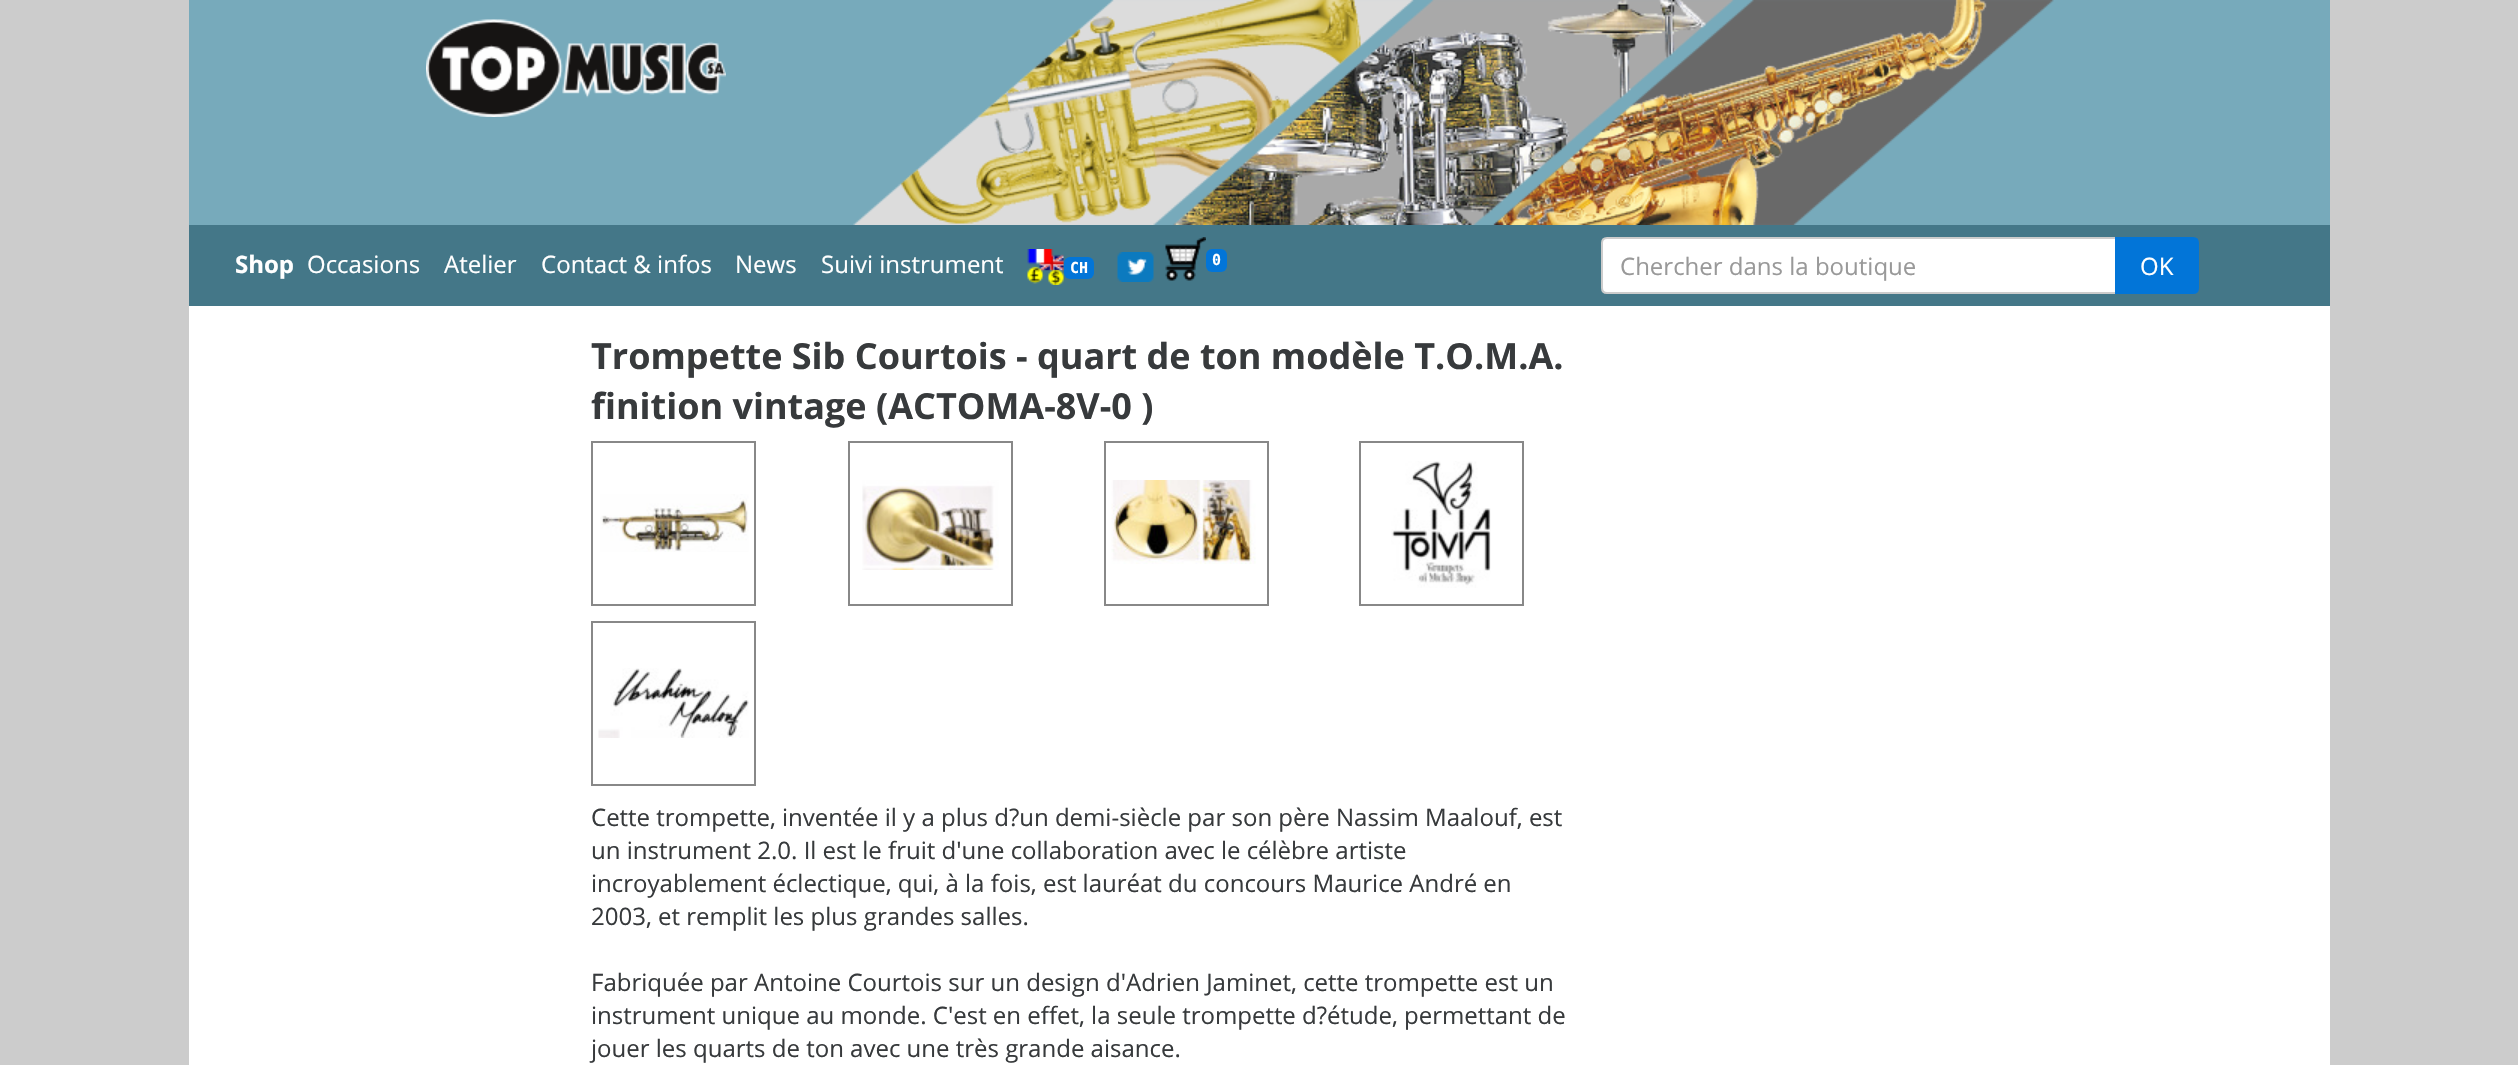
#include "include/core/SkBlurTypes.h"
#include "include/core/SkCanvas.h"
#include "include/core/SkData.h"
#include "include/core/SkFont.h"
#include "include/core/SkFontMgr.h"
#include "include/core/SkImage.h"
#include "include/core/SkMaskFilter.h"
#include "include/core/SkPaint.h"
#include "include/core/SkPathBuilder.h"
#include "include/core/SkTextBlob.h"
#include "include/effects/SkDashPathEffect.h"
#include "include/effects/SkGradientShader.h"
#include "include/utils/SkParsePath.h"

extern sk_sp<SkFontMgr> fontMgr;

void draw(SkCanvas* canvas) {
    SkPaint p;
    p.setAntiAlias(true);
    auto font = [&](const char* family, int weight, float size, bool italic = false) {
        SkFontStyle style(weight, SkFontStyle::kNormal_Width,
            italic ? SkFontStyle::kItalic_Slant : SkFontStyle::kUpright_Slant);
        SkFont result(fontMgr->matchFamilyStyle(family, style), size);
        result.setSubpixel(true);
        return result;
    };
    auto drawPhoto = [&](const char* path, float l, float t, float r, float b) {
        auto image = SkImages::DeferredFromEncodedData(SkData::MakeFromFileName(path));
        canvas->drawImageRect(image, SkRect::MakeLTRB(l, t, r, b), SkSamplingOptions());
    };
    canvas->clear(0xFFCCCCCC);
    p.setColor(0xFFFFFFFF);
    canvas->drawRect(SkRect::MakeLTRB(189, 306, 2330, 1065), p);
    p.setColor(0xFF77AABB);
    canvas->drawRect(SkRect::MakeLTRB(189, 0, 2330, 225), p);
    drawPhoto("media/1.png", 426, 19, 726, 117);
    drawPhoto("media/2.png", 853, 0, 2054, 225);
    p.setColor(0xFF447788);
    canvas->drawRect(SkRect::MakeLTRB(189, 225, 2330, 306), p);
    auto font1 = font("Open Sans", 700, 24);
    p.setColor(0xFFFFFFFF);
    canvas->drawString("Shop", 235, 273, font1, p);
    auto font2 = font("Open Sans", 400, 24);
    {
        const struct { const char* s; float x, y; } items[] = {
            {"Occasions", 307, 273},
            {"Atelier", 444, 273},
            {"Contact & infos", 541, 273},
            {"News", 735, 273},
            {"Suivi instrument", 821, 273},
        };
        for (auto [s, x, y] : items) {
            canvas->drawString(s, x, y, font2, p);
        }
    }
    drawPhoto("media/3.png", 1027, 249, 1064, 285);
    p.setColor(0xFF0275D8);
    canvas->drawRoundRect(SkRect::MakeLTRB(1064, 257, 1094, 279), 6, 6, p);
    auto font3 = font("DejaVu Sans Mono", 700, 15);
    p.setColor(0xFFFFFFFF);
    canvas->drawString("CH", 1070, 273, font3, p);
    drawPhoto("media/4.png", 1117, 252, 1154, 282);
    drawPhoto("media/5.png", 1165, 237, 1206, 281);
    p.setColor(0xFF0275D8);
    canvas->drawRoundRect(SkRect::MakeLTRB(1206, 249, 1227, 272), 6, 6, p);
    p.setColor(0xFFFFFFFF);
    canvas->drawString("0", 1212, 265, font3, p);
    canvas->drawPath(SkPathBuilder().moveTo(1607, 238).lineTo(2116, 238).lineTo(2116, 293).lineTo(1607, 293).cubicTo(1604, 293, 1602, 291, 1602, 288).lineTo(1602, 243).cubicTo(1602, 240, 1604, 238, 1607, 238).close().detach(), p);
    p.setStyle(SkPaint::kStroke_Style);
    p.setStrokeWidth(2);
    p.setColor(0xFFCCCCCC);
    canvas->drawPath(SkPathBuilder().moveTo(1607, 238).lineTo(2116, 238).lineTo(2116, 293).lineTo(1607, 293).cubicTo(1604, 293, 1602, 291, 1602, 288).lineTo(1602, 243).cubicTo(1602, 240, 1604, 238, 1607, 238).close().detach(), p);
    p.setStyle(SkPaint::kFill_Style);
    p.setColor(0xFF999999);
    canvas->drawString("Chercher dans la boutique", 1620, 275, font2, p);
    p.setColor(0xFF0275D8);
    canvas->drawPath(SkPathBuilder().moveTo(2116, 238).lineTo(2193, 238).cubicTo(2196, 238, 2198, 240, 2198, 243).lineTo(2198, 288).cubicTo(2198, 291, 2196, 293, 2193, 293).lineTo(2116, 293).close().detach(), p);
    p.setStyle(SkPaint::kStroke_Style);
    canvas->drawPath(SkPathBuilder().moveTo(2116, 238).lineTo(2193, 238).cubicTo(2196, 238, 2198, 240, 2198, 243).lineTo(2198, 288).cubicTo(2198, 291, 2196, 293, 2193, 293).lineTo(2116, 293).close().detach(), p);
    p.setStyle(SkPaint::kFill_Style);
    p.setColor(0xFFFFFFFF);
    canvas->drawString("OK", 2140, 275, font2, p);
    auto font4 = font("Open Sans", 700, 36);
    p.setColor(0xFF373A3C);
    canvas->drawString("Trompette Sib Courtois - quart de ton modèle T.O.M.A.", 591, 369, font4, p);
    canvas->drawString("finition vintage (ACTOMA-8V-0 )", 591, 419, font4, p);
    p.setStyle(SkPaint::kStroke_Style);
    p.setColor(0xFF888888);
    canvas->drawRect(SkRect::MakeLTRB(592, 442, 755, 605), p);
    drawPhoto("media/6.png", 600, 494, 749, 552);
    canvas->drawRect(SkRect::MakeLTRB(849, 442, 1012, 605), p);
    drawPhoto("media/7.png", 862, 480, 999, 570);
    canvas->drawRect(SkRect::MakeLTRB(1105, 442, 1268, 605), p);
    drawPhoto("media/8.png", 1111, 480, 1256, 564);
    canvas->drawRect(SkRect::MakeLTRB(1360, 442, 1523, 605), p);
    drawPhoto("media/9.png", 1391, 461, 1491, 588);
    canvas->drawRect(SkRect::MakeLTRB(592, 622, 755, 785), p);
    drawPhoto("media/10.png", 598, 668, 749, 738);
    p.setStyle(SkPaint::kFill_Style);
    p.setColor(0xFF373A3C);
    {
        const struct { const char* s; float x, y; } items[] = {
            {"Cette trompette, inventée il y a plus d?un demi-siècle par son père Nassim Maalouf, est", 591, 826},
            {"un instrument 2.0. Il est le fruit d'une collaboration avec le célèbre artiste", 591, 859},
            {"incroyablement éclectique, qui, à la fois, est lauréat du concours Maurice André en", 591, 892},
            {"2003, et remplit les plus grandes salles.", 591, 925},
            {"Fabriquée par Antoine Courtois sur un design d'Adrien Jaminet, cette trompette est un", 591, 991},
            {"instrument unique au monde. C'est en effet, la seule trompette d?étude, permettant de", 591, 1024},
            {"jouer les quarts de ton avec une très grande aisance.", 591, 1057},
        };
        for (auto [s, x, y] : items) {
            canvas->drawString(s, x, y, font2, p);
        }
    }
}
